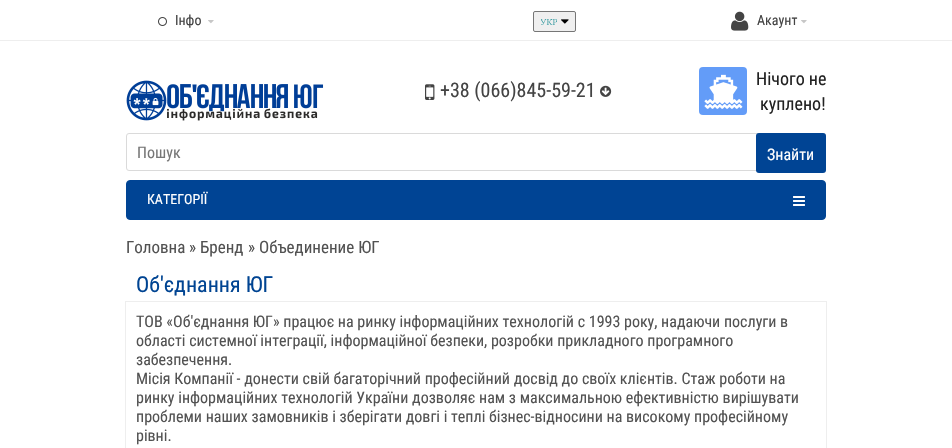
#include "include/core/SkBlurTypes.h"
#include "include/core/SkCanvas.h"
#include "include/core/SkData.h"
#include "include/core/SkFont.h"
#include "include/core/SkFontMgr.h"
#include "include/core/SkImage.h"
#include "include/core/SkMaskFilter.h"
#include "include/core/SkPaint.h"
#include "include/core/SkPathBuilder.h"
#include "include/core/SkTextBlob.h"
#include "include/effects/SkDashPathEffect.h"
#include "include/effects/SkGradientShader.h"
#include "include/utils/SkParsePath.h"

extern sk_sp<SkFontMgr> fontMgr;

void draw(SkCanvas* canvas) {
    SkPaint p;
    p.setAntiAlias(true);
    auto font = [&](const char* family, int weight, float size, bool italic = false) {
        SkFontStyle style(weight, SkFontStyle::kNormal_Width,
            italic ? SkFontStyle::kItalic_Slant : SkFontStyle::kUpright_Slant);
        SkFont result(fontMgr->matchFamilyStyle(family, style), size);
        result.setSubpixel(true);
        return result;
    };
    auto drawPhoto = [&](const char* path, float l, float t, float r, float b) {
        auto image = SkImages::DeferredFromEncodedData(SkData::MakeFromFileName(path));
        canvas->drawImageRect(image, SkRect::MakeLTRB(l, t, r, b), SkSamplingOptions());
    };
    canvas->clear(0xFFFFFFFF);
    p.setStyle(SkPaint::kStroke_Style);
    p.setStrokeWidth(1);
    p.setColor(0xFFEEEEEE);
    canvas->drawRect(SkRect::MakeLTRB(-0.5f, -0.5f, 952.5f, 40.5f), p);
    drawPhoto("media/1.png", 158, 17, 167, 26);
    auto font1 = font("Roboto Condensed", 400, 14);
    p.setStyle(SkPaint::kFill_Style);
    p.setColor(0xFF444444);
    canvas->drawString("Інфо", 175, 25, font1, p);
    drawPhoto("media/2.png", 208, 20, 214, 24);
    auto font2 = font("Roboto Condensed", 400, 17);
    p.setColor(0xFF525252);
    {
        const struct { const char* s; float x, y; } items[] = {
            {"Головна", 126, 253},
            {"»", 189, 253},
            {"Бренд", 200, 253},
            {"» Объединение ЮГ", 248, 253},
        };
        for (auto [s, x, y] : items) {
            canvas->drawString(s, x, y, font2, p);
        }
    }
    auto font3 = font("Roboto Condensed", 400, 22);
    p.setColor(0xFF004492);
    canvas->drawString("Об'єднання ЮГ", 136, 292, font3, p);
    p.setStyle(SkPaint::kStroke_Style);
    p.setColor(0xFFEEEEEE);
    canvas->drawRect(SkRect::MakeLTRB(125.5f, 301.5f, 826.5f, 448.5f), p);
    auto font4 = font("Roboto Condensed", 400, 16);
    p.setStyle(SkPaint::kFill_Style);
    p.setColor(0xFF525252);
    {
        const struct { const char* s; float x, y; } items[] = {
            {"ТОВ «Об'єднання ЮГ» працює на ринку інформаційних технологій c 1993 року, надаючи послуги в", 136, 327},
            {"області системної інтеграції, інформаційної безпеки, розробки прикладного програмного", 136, 346},
            {"забезпечення.", 136, 365},
            {"Місія Компанії - донести свій багаторічний професійний досвід до своїх клієнтів. Стаж роботи на", 136, 384},
            {"ринку інформаційних технологій України дозволяє нам з максимальною ефективністю вирішувати", 136, 403},
            {"проблеми наших замовників і зберігати довгі і теплі бізнес-відносини на високому професійному", 136, 422},
            {"рівні.", 136, 441},
        };
        for (auto [s, x, y] : items) {
            canvas->drawString(s, x, y, font4, p);
        }
    }
    p.setColor(0xFFEFEFEF);
    canvas->drawRoundRect(SkRect::MakeLTRB(533.5f, 11.5f, 575.5f, 31.5f), 1.5f, 1.5f, p);
    p.setStyle(SkPaint::kStroke_Style);
    p.setColor(0xFF767676);
    canvas->drawRoundRect(SkRect::MakeLTRB(533.5f, 11.5f, 575.5f, 31.5f), 1.5f, 1.5f, p);
    drawPhoto("media/3.png", 541, 19, 557, 25);
    drawPhoto("media/4.png", 561, 19, 569, 24);
    drawPhoto("media/5.png", 731, 11, 749, 31);
    p.setStyle(SkPaint::kFill_Style);
    p.setColor(0xFF444444);
    canvas->drawString("Акаунт", 757, 25, font1, p);
    drawPhoto("media/2.png", 801, 20, 807, 24);
    drawPhoto("media/6.png", 126, 80, 324, 121);
    drawPhoto("media/7.png", 425, 84, 435, 100);
    auto font5 = font("Roboto Condensed", 400, 20);
    canvas->drawString("+38 (066)845-59-21", 440, 97, font5, p);
    drawPhoto("media/8.png", 600, 85, 612, 97);
    p.setColor(0xFF639CF8);
    canvas->drawRoundRect(SkRect::MakeLTRB(699, 67, 747, 115), 4, 4, p);
    drawPhoto("media/9.png", 704, 74, 743, 109);
    auto font6 = font("Roboto Condensed", 400, 18);
    p.setColor(0xFF222222);
    canvas->drawString("Нічого не", 756, 85, font6, p);
    canvas->drawString("куплено!", 760, 110, font6, p);
    p.setStyle(SkPaint::kStroke_Style);
    p.setColor(0xFFDADADA);
    canvas->drawRoundRect(SkRect::MakeLTRB(126.5f, 133.5f, 825.5f, 170.5f), 2.5f, 2.5f, p);
    p.setStyle(SkPaint::kFill_Style);
    p.setColor(0xFF777777);
    canvas->drawString("Пошук", 137, 158, font4, p);
    p.setColor(0xFF004494);
    canvas->drawRoundRect(SkRect::MakeLTRB(756, 133, 826, 173), 3, 3, p);
    p.setColor(0xFFFFFFFF);
    canvas->drawString("Знайти", 767, 160, font4, p);
    p.setColor(0xFF004494);
    canvas->drawRoundRect(SkRect::MakeLTRB(126.5f, 180.5f, 825.5f, 219.5f), 3.5f, 3.5f, p);
    p.setStyle(SkPaint::kStroke_Style);
    canvas->drawRoundRect(SkRect::MakeLTRB(126.5f, 180.5f, 825.5f, 219.5f), 3.5f, 3.5f, p);
    p.setStyle(SkPaint::kFill_Style);
    p.setColor(0xFFFFFFFF);
    canvas->drawString("КАТЕГОРІЇ", 147, 204, font1, p);
    drawPhoto("media/10.png", 793, 196, 805, 206);
}
